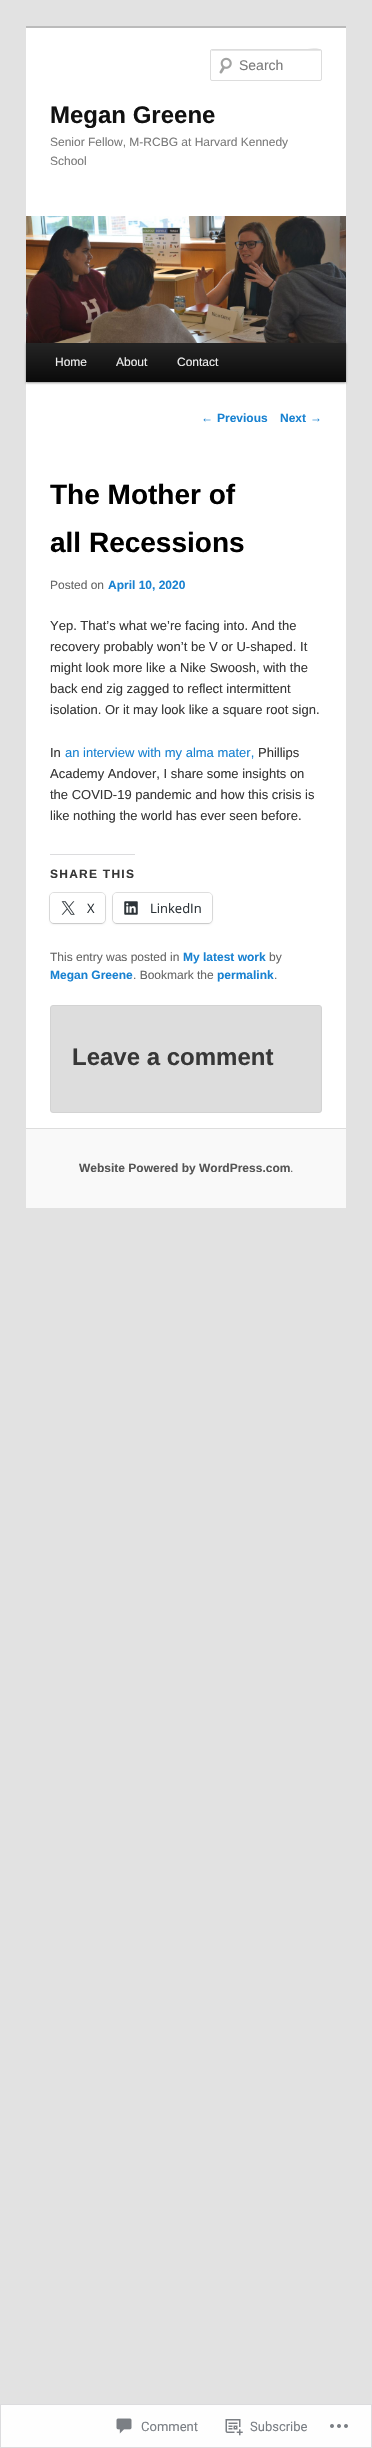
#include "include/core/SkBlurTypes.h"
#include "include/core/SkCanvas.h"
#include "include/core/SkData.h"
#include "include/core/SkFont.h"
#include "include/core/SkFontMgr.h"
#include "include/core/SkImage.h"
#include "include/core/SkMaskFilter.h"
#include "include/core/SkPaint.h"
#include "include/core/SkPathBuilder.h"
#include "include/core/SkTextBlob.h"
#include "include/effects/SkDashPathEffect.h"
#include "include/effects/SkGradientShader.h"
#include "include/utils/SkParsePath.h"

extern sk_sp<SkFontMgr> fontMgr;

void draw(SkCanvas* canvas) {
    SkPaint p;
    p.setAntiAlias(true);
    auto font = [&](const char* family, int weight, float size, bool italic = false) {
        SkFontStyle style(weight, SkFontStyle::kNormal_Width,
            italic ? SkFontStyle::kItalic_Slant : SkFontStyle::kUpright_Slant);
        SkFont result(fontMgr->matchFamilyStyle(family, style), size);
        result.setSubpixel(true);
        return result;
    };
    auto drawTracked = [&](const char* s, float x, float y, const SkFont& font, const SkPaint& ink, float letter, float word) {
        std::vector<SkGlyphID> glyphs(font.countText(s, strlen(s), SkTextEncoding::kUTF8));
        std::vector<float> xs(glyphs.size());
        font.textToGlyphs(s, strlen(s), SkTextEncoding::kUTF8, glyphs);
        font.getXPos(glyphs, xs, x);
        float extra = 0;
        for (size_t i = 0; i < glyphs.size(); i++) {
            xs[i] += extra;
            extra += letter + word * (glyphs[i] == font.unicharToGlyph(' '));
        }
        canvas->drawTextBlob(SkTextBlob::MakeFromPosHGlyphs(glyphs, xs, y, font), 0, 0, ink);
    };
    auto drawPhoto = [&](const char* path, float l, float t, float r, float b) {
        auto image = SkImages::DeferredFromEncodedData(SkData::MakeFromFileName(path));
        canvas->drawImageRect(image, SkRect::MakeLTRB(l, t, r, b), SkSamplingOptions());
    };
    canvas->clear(0xFFE2E2E2);
    p.setColor(0xFFFFFFFF);
    canvas->drawRect(SkRect::MakeLTRB(26, 28, 346, 1128), p);
    p.setColor(0xFFBBBBBB);
    canvas->drawRect(SkRect::MakeLTRB(26, 26, 346, 28), p);
    drawPhoto("media/1.png", 219, 57, 232, 74);
    p.setColor(0xFFE6E6E6);
    canvas->drawPath(SkPathBuilder().moveTo(212, 51).lineTo(321, 51).lineTo(321, 52).cubicTo(321, 45, 306, 50, 302, 50).lineTo(212, 50).lineTo(211, 52).cubicTo(211, 51, 211, 51, 212, 51).close().detach(), p);
    p.setStyle(SkPaint::kStroke_Style);
    p.setStrokeWidth(1);
    p.setColor(0xFFDDDDDD);
    canvas->drawRoundRect(SkRect::MakeLTRB(210.5f, 49.5f, 321.5f, 80.5f), 1.5f, 1.5f, p);
    auto font1 = font("Liberation Sans", 400, 14);
    p.setStyle(SkPaint::kFill_Style);
    p.setColor(0xFF7A7A7A);
    canvas->drawString("Search", 239, 70, font1, p);
    auto font2 = font("Liberation Sans", 700, 24);
    p.setColor(0xFF111111);
    canvas->drawString("Megan Greene", 50, 123, font2, p);
    auto font3 = font("Liberation Sans", 400, 12);
    p.setColor(0xFF7A7A7A);
    canvas->drawString("Senior Fellow, M-RCBG at Harvard Kennedy", 50, 146, font3, p);
    canvas->drawString("School", 50, 165, font3, p);
    p.setColor(0x66000000);
    p.setMaskFilter(SkMaskFilter::MakeBlur(kNormal_SkBlurStyle, 1));
    canvas->drawRect(SkRect::MakeLTRB(26, 343, 346, 383), p);
    p.setMaskFilter(nullptr);
    drawPhoto("media/2.png", 26, 216, 346, 343);
    {
        const SkColor colors[] = {0xFF252525, 0xFF0A0A0A};
        const float stops[] = {0, 1};
        const SkPoint ends[] = {{186, 342}, {186, 382}};
        p.setShader(SkGradientShader::MakeLinear(ends, colors, stops, 2, SkTileMode::kClamp));
        p.setAlpha(255);
    }
    canvas->drawRect(SkRect::MakeLTRB(26, 343, 346, 382), p);
    p.setShader(nullptr);
    p.setColor(0xFFEEEEEE);
    {
        const struct { const char* s; float x, y; } items[] = {
            {"Home", 55, 366},
            {"About", 116, 366},
            {"Contact", 177, 366},
        };
        for (auto [s, x, y] : items) {
            canvas->drawString(s, x, y, font3, p);
        }
    }
    p.setColor(0xFF1982D1);
    canvas->drawString("←", 201, 422, font3, p);
    auto font4 = font("Liberation Sans", 700, 12);
    canvas->drawString("Previous", 217, 422, font4, p);
    canvas->drawString("Next", 280, 422, font4, p);
    canvas->drawString("→", 310, 422, font3, p);
    auto font5 = font("Liberation Sans", 700, 28);
    p.setColor(0xFF000000);
    canvas->drawString("The Mother of", 50, 504, font5, p);
    canvas->drawString("all Recessions", 50, 552, font5, p);
    p.setColor(0xFF666666);
    canvas->drawString("Posted on", 50, 589, font3, p);
    p.setColor(0xFF1982D1);
    canvas->drawString("April 10, 2020", 108, 589, font4, p);
    auto font6 = font("Liberation Sans", 400, 13);
    p.setColor(0xFF373737);
    {
        const struct { const char* s; float x, y; } items[] = {
            {"Yep. That’s what we’re facing into. And the", 50, 630},
            {"recovery probably won’t be V or U-shaped. It", 50, 651},
            {"might look more like a Nike Swoosh, with the", 50, 672},
            {"back end zig zagged to reflect intermittent", 50, 693},
            {"isolation. Or it may look like a square root sign.", 50, 714},
            {"In", 50, 757},
        };
        for (auto [s, x, y] : items) {
            canvas->drawString(s, x, y, font6, p);
        }
    }
    p.setColor(0xFF1982D1);
    canvas->drawString("an interview with my alma mater,", 65, 757, font6, p);
    p.setColor(0xFF373737);
    {
        const struct { const char* s; float x, y; } items[] = {
            {"Phillips", 258, 757},
            {"Academy Andover, I share some insights on", 50, 778},
            {"the COVID-19 pandemic and how this crisis is", 50, 799},
            {"like nothing the world has ever seen before.", 50, 820},
        };
        for (auto [s, x, y] : items) {
            canvas->drawString(s, x, y, font6, p);
        }
    }
    p.setColor(0xFFDCDCDE);
    canvas->drawRect(SkRect::MakeLTRB(50, 854, 135, 855), p);
    p.setColor(0xFF373737);
    drawTracked("SHARE THIS", 50, 878, font4, p, 1.25f, 0);
    p.setStyle(SkPaint::kStroke_Style);
    p.setColor(0xFFE0E0E0);
    canvas->drawRoundRect(SkRect::MakeLTRB(49.5f, 892.5f, 105.5f, 923.5f), 4.5f, 4.5f, p);
    p.setStyle(SkPaint::kFill_Style);
    p.setColor(0x1F000000);
    p.setMaskFilter(SkMaskFilter::MakeBlur(kNormal_SkBlurStyle, 1));
    canvas->drawRoundRect(SkRect::MakeLTRB(50, 894, 105, 924), 4, 4, p);
    p.setMaskFilter(nullptr);
    p.setColor(0xFFFFFFFF);
    canvas->drawRoundRect(SkRect::MakeLTRB(50, 893, 105, 923), 4, 4, p);
    drawPhoto("media/3.png", 61, 901, 75, 915);
    auto font7 = font("Open Sans", 400, 13);
    p.setColor(0xFF2C3338);
    canvas->drawString("X", 87, 913, font7, p);
    p.setStyle(SkPaint::kStroke_Style);
    p.setColor(0xFFE0E0E0);
    canvas->drawRoundRect(SkRect::MakeLTRB(112.5f, 892.5f, 212.5f, 923.5f), 4.5f, 4.5f, p);
    p.setStyle(SkPaint::kFill_Style);
    p.setColor(0x1F000000);
    p.setMaskFilter(SkMaskFilter::MakeBlur(kNormal_SkBlurStyle, 1));
    canvas->drawRoundRect(SkRect::MakeLTRB(113, 894, 212, 924), 4, 4, p);
    p.setMaskFilter(nullptr);
    p.setColor(0xFFFFFFFF);
    canvas->drawRoundRect(SkRect::MakeLTRB(113, 893, 212, 923), 4, 4, p);
    drawPhoto("media/4.png", 124, 901, 138, 915);
    p.setColor(0xFF2C3338);
    canvas->drawString("LinkedIn", 150, 913, font7, p);
    p.setColor(0xFF666666);
    canvas->drawString("This entry was posted in", 50, 961, font3, p);
    p.setColor(0xFF1982D1);
    canvas->drawString("My latest work", 183, 961, font4, p);
    p.setColor(0xFF666666);
    canvas->drawString("by", 269, 961, font3, p);
    p.setColor(0xFF1982D1);
    canvas->drawString("Megan Greene", 50, 979, font4, p);
    p.setColor(0xFF666666);
    canvas->drawString(". Bookmark the", 133, 979, font3, p);
    p.setColor(0xFF1982D1);
    canvas->drawString("permalink", 217, 979, font4, p);
    p.setColor(0xFF666666);
    canvas->drawString(".", 274, 979, font3, p);
    p.setColor(0xFFDDDDDD);
    canvas->drawRoundRect(SkRect::MakeLTRB(50.5f, 1005.5f, 321.5f, 1112.5f), 2.5f, 2.5f, p);
    p.setStyle(SkPaint::kStroke_Style);
    p.setColor(0xFFD3D3D3);
    canvas->drawRoundRect(SkRect::MakeLTRB(50.5f, 1005.5f, 321.5f, 1112.5f), 2.5f, 2.5f, p);
    p.setStyle(SkPaint::kFill_Style);
    p.setColor(0xFF373737);
    canvas->drawString("Leave a comment", 72, 1065, font2, p);
    p.setColor(0xFFF9F9F9);
    canvas->drawRect(SkRect::MakeLTRB(26, 1129, 346, 1208), p);
    p.setColor(0xFFDDDDDD);
    canvas->drawRect(SkRect::MakeLTRB(26, 1128, 346, 1129), p);
    p.setColor(0xFF555555);
    canvas->drawString("Website Powered by WordPress.com", 79, 1172, font4, p);
    p.setColor(0xFF666666);
    canvas->drawString(".", 290, 1172, font3, p);
    p.setColor(0xFFFEFEFE);
    canvas->drawRect(SkRect::MakeLTRB(0.5f, 2404.5f, 371.5f, 2447.5f), p);
    p.setStyle(SkPaint::kStroke_Style);
    p.setColor(0xFFDCDCDE);
    canvas->drawRect(SkRect::MakeLTRB(0.5f, 2404.5f, 371.5f, 2447.5f), p);
    drawPhoto("media/5.png", 116, 2418, 132, 2434);
    auto font8 = font("Roboto", 400, 13);
    p.setStyle(SkPaint::kFill_Style);
    p.setColor(0xFF7A7E84);
    canvas->drawString("Comment", 141, 2431, font8, p);
    drawPhoto("media/6.png", 225, 2419, 243, 2436);
    canvas->drawString("Subscribe", 250, 2431, font8, p);
    drawPhoto("media/7.png", 330, 2424, 348, 2428);
}
